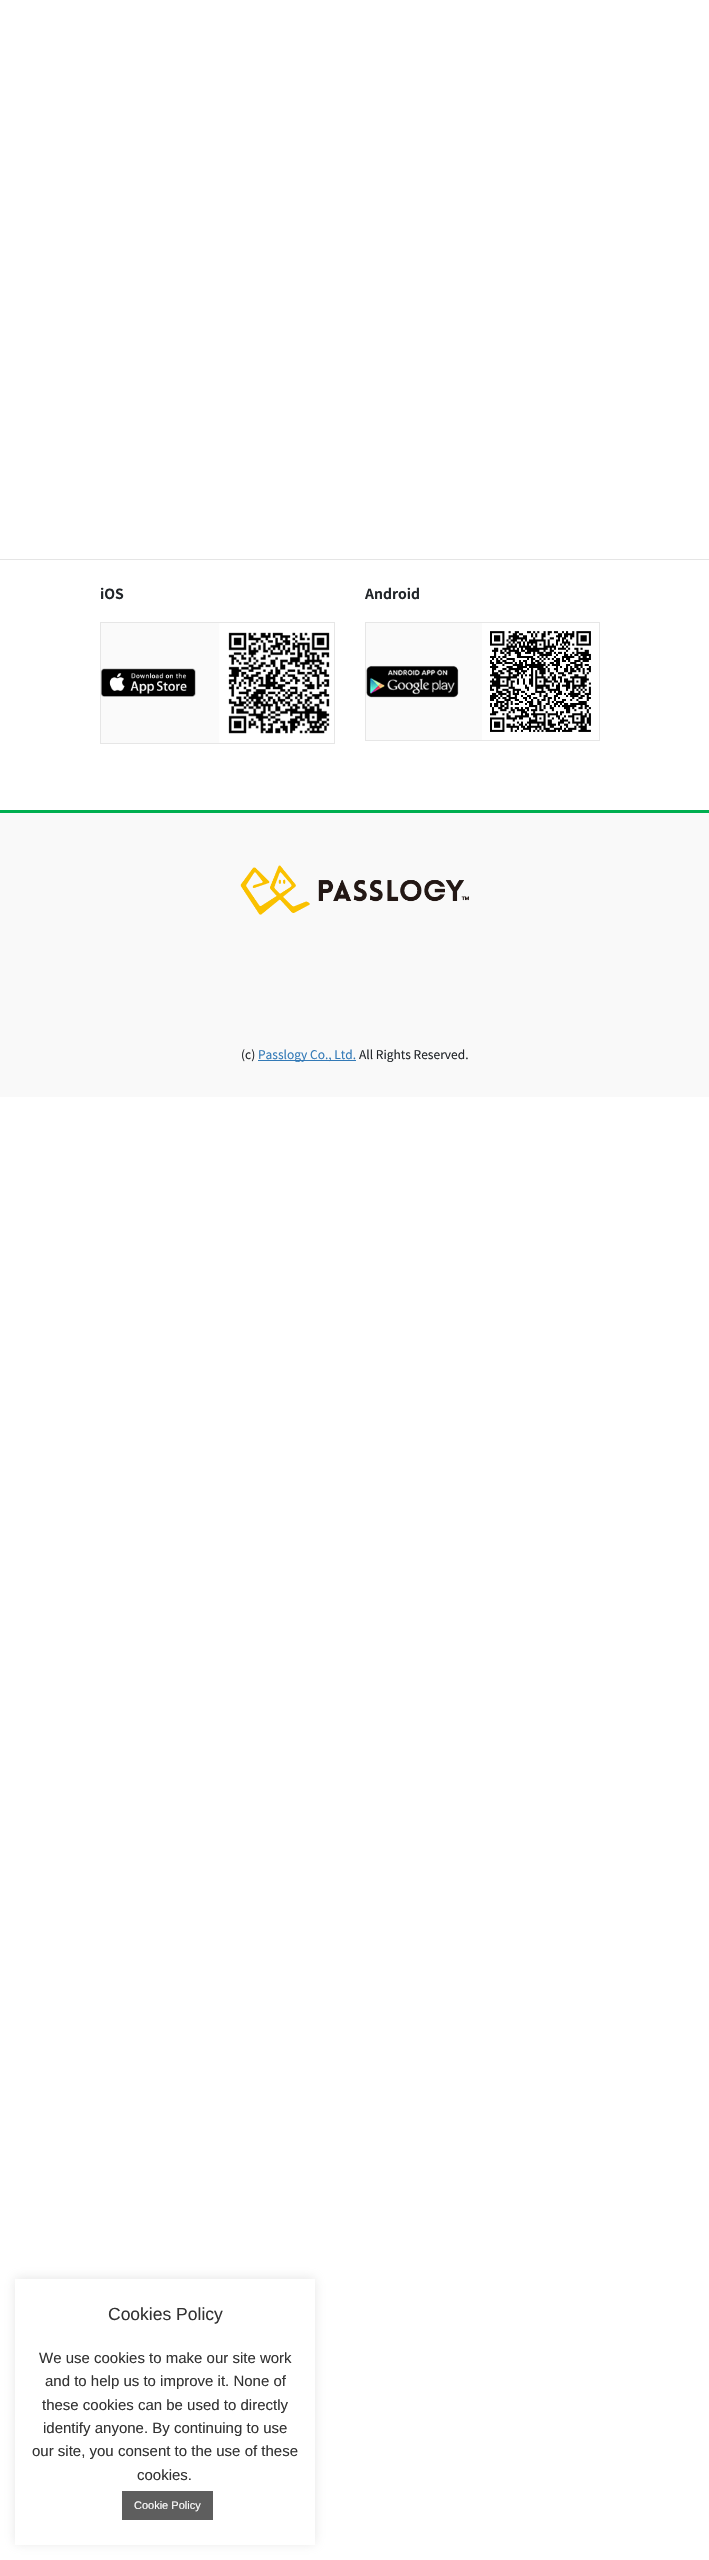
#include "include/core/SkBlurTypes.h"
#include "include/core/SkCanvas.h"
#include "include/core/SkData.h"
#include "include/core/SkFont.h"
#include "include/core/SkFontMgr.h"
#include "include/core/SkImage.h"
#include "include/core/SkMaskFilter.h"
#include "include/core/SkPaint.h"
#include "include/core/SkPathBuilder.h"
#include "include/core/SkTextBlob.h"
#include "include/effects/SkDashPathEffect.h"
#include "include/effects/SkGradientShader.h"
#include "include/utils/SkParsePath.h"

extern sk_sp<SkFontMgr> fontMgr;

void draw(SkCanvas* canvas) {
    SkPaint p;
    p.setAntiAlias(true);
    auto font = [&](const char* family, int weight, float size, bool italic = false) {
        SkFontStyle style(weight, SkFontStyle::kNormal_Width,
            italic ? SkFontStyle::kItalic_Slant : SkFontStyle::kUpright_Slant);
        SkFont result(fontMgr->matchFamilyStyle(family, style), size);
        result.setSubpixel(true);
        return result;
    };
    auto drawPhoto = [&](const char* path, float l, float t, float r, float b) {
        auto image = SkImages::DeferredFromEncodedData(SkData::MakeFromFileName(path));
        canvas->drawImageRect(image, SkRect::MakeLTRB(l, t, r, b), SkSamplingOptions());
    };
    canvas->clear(0xFFFFFFFF);
    p.setColor(0xFFE5E5E5);
    canvas->drawRect(SkRect::MakeLTRB(0, 559, 709, 560), p);
    auto font1 = font("Noto Sans JP", 700, 14);
    p.setColor(0xFF212529);
    canvas->drawString("iOS", 100, 599, font1, p);
    p.setStyle(SkPaint::kStroke_Style);
    p.setStrokeWidth(1);
    p.setColor(0xFFE6E6E6);
    canvas->drawRect(SkRect::MakeLTRB(100.5f, 622.5f, 334.5f, 743.5f), p);
    drawPhoto("media/1.png", 101, 623, 334, 743);
    p.setStyle(SkPaint::kFill_Style);
    p.setColor(0xFF212529);
    canvas->drawString("Android", 365, 599, font1, p);
    p.setStyle(SkPaint::kStroke_Style);
    p.setColor(0xFFE6E6E6);
    canvas->drawRect(SkRect::MakeLTRB(365.5f, 622.5f, 599.5f, 740.5f), p);
    drawPhoto("media/2.png", 366, 623, 599, 740);
    p.setStyle(SkPaint::kFill_Style);
    p.setColor(0xFFF9F9F9);
    canvas->drawRect(SkRect::MakeLTRB(0, 813, 709, 1097), p);
    p.setColor(0xFF00AF50);
    canvas->drawRect(SkRect::MakeLTRB(0, 810, 709, 813), p);
    drawPhoto("media/3.png", 240, 865, 469, 915);
    auto font2 = font("Noto Sans JP", 400, 12);
    p.setColor(0xFF212529);
    canvas->drawString("(c)", 241, 1059, font2, p);
    p.setColor(0xFF337AB7);
    canvas->drawRect(SkRect::MakeLTRB(258, 1060, 356, 1061), p);
    canvas->drawString("Passlogy Co., Ltd.", 258, 1059, font2, p);
    p.setColor(0xFF212529);
    canvas->drawString("All Rights Reserved.", 359, 1059, font2, p);
    canvas->save();
    canvas->clipPath(SkPathBuilder(SkPathFillType::kEvenOdd).moveTo(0, 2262).lineTo(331, 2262).lineTo(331, 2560).lineTo(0, 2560).close().moveTo(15, 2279).lineTo(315, 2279).lineTo(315, 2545).lineTo(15, 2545).close().detach(), true);
    p.setColor(0x4DACABAB);
    p.setMaskFilter(SkMaskFilter::MakeBlur(kNormal_SkBlurStyle, 5));
    canvas->drawRect(SkRect::MakeLTRB(15, 2278, 315, 2544), p);
    p.setMaskFilter(nullptr);
    canvas->restore();
    auto font3 = font("Liberation Sans", 400, 17.5f);
    p.setColor(0xFF333333);
    canvas->drawString("Cookies Policy", 108, 2320, font3, p);
    auto font4 = font("Liberation Sans", 400, 15);
    {
        const struct { const char* s; float x, y; } items[] = {
            {"We use cookies to make our site work", 39, 2363},
            {"and to help us to improve it. None of", 45, 2386},
            {"these cookies can be used to directly", 42, 2410},
            {"identify anyone. By continuing to use", 43, 2433},
            {"our site, you consent to the use of these", 32, 2456},
            {"cookies.", 137, 2480},
        };
        for (auto [s, x, y] : items) {
            canvas->drawString(s, x, y, font4, p);
        }
    }
    p.setColor(0xFF5E5E5E);
    canvas->drawRect(SkRect::MakeLTRB(122, 2491, 213, 2520), p);
    auto font5 = font("Liberation Sans", 400, 11);
    p.setColor(0xFFFFFFFF);
    canvas->drawString("Cookie Policy", 134, 2509, font5, p);
}
